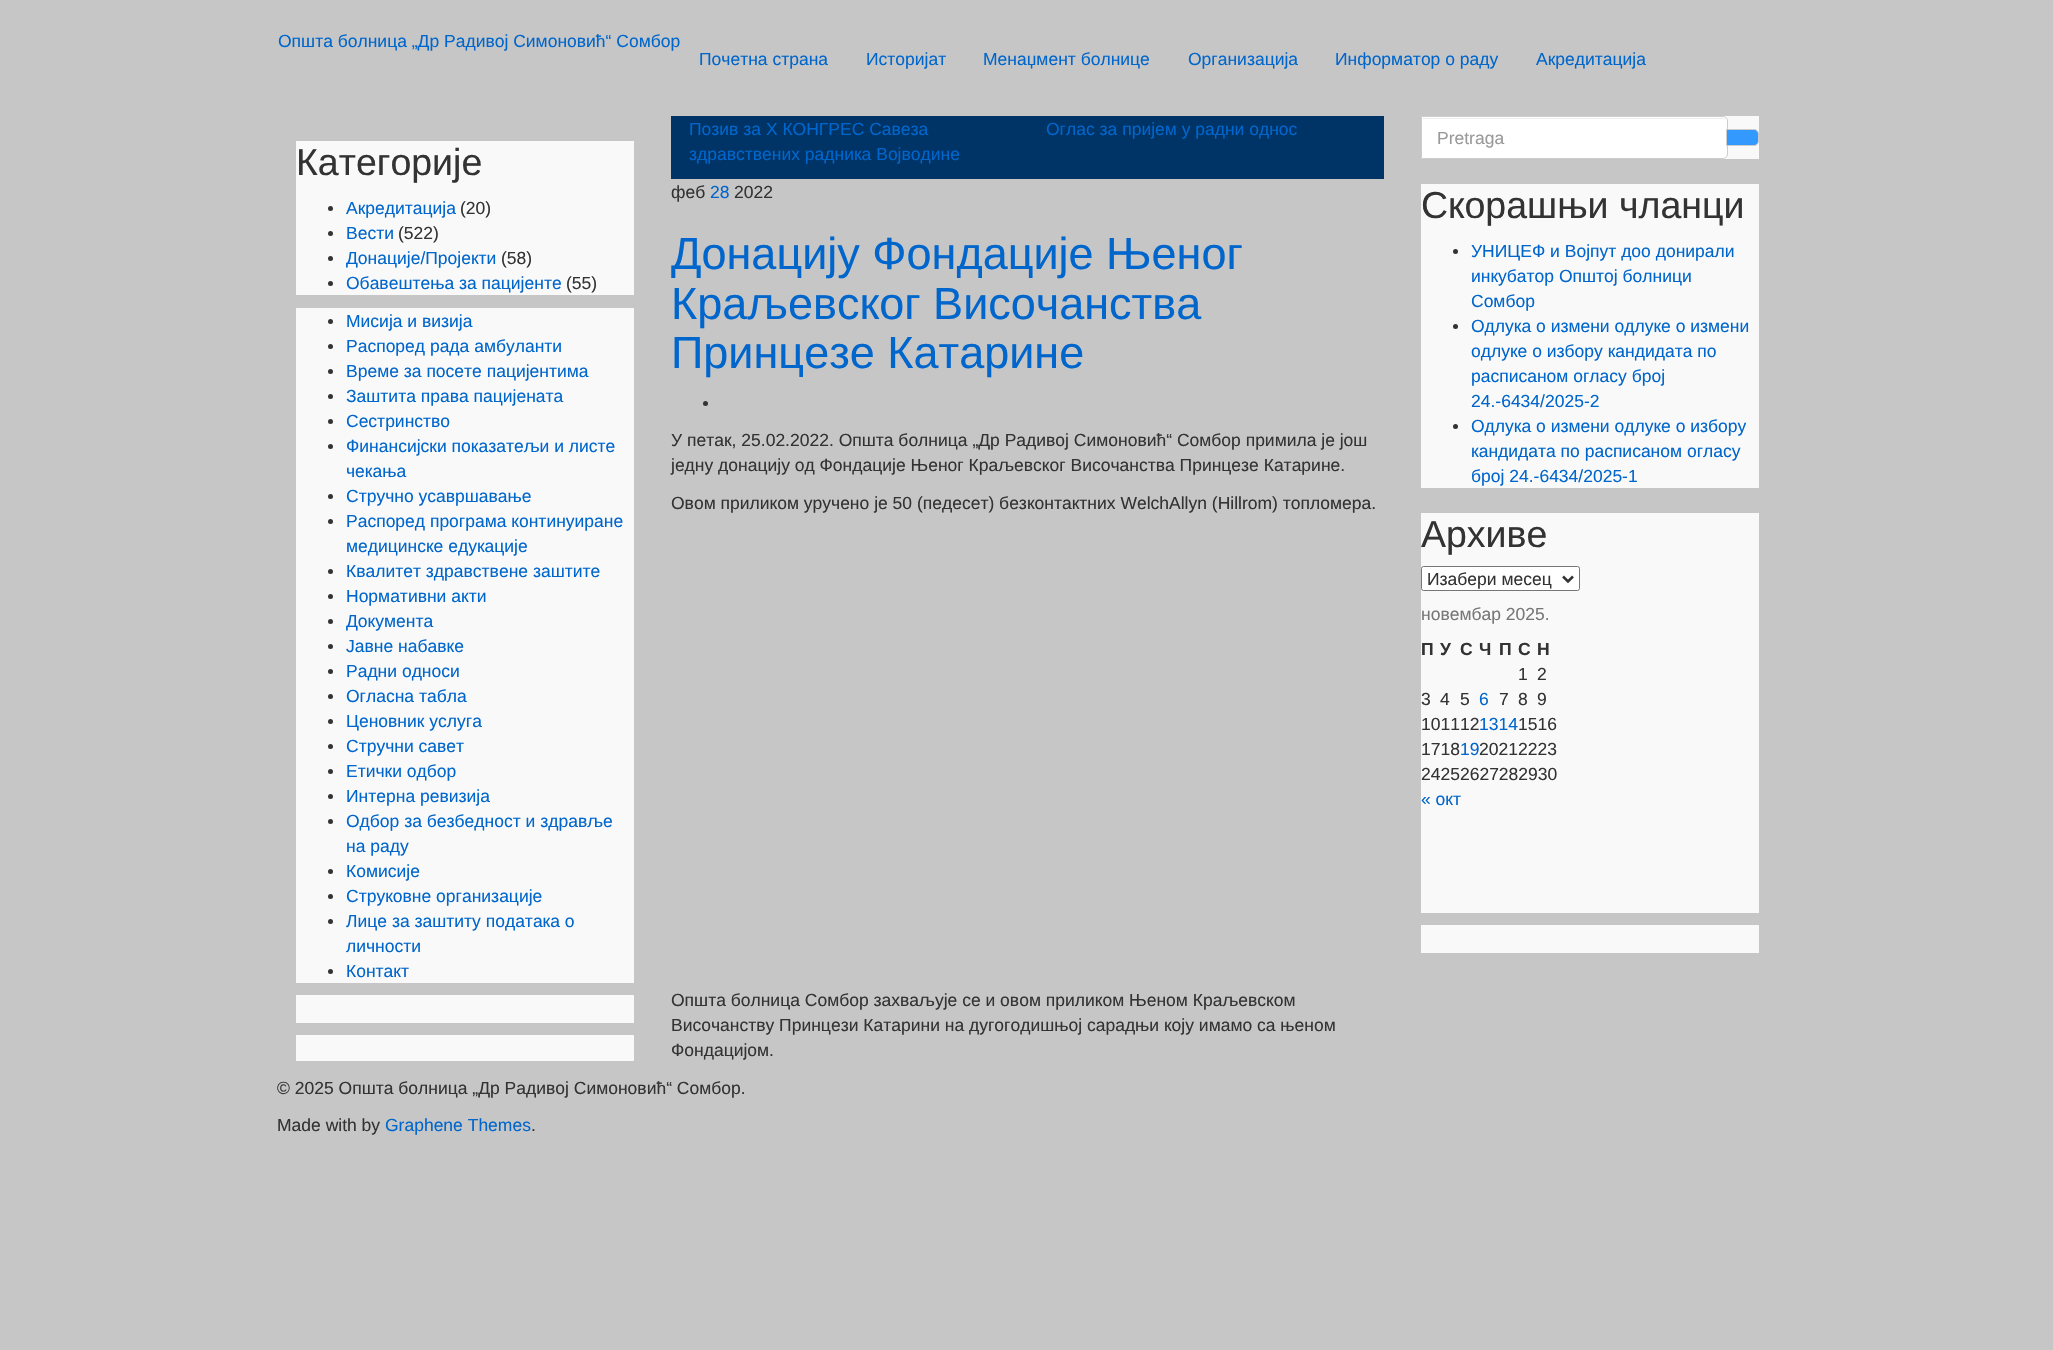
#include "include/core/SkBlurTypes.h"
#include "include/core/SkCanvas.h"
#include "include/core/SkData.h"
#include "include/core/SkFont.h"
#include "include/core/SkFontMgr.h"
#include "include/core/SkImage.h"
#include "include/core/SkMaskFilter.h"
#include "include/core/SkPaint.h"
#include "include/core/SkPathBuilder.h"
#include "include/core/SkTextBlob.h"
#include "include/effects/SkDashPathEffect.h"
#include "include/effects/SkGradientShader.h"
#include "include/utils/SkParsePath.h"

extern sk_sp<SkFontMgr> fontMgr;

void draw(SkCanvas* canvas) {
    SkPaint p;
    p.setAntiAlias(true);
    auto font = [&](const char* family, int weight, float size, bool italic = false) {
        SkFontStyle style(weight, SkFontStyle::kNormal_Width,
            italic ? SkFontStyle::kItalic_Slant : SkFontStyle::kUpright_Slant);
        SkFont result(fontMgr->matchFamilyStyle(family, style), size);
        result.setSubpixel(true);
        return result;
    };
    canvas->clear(0xFFC6C6C6);
    auto font1 = font("Liberation Sans", 400, 17.5f);
    p.setColor(0xFF0066CC);
    {
        const struct { const char* s; float x, y; } items[] = {
            {"Општа болница „Др Радивој Симоновић“ Сомбор", 278, 47},
            {"Почетна страна", 699, 65},
            {"Историјат", 866, 65},
            {"Менаџмент болнице", 983, 65},
            {"Организација", 1188, 65},
            {"Информатор о раду", 1335, 65},
            {"Акредитација", 1536, 65},
        };
        for (auto [s, x, y] : items) {
            canvas->drawString(s, x, y, font1, p);
        }
    }
    p.setColor(0xFFF9F9F9);
    canvas->drawRect(SkRect::MakeLTRB(296, 141, 634, 295), p);
    auto font2 = font("Liberation Sans", 400, 37.5f);
    p.setColor(0xFF333333);
    canvas->drawString("Категорије", 296, 175, font2, p);
    canvas->drawCircle(330.5f, 208.5f, 2.5f, p);
    p.setColor(0xFF0066CC);
    canvas->drawString("Акредитација", 346, 214, font1, p);
    p.setColor(0xFF333333);
    canvas->drawString("(20)", 460, 214, font1, p);
    canvas->drawCircle(330.5f, 233.5f, 2.5f, p);
    p.setColor(0xFF0066CC);
    canvas->drawString("Вести", 346, 239, font1, p);
    p.setColor(0xFF333333);
    canvas->drawString("(522)", 398, 239, font1, p);
    canvas->drawCircle(330.5f, 258.5f, 2.5f, p);
    p.setColor(0xFF0066CC);
    canvas->drawString("Донације/Пројекти", 346, 264, font1, p);
    p.setColor(0xFF333333);
    canvas->drawString("(58)", 501, 264, font1, p);
    canvas->drawCircle(330.5f, 283.5f, 2.5f, p);
    p.setColor(0xFF0066CC);
    canvas->drawString("Обавештења за пацијенте", 346, 289, font1, p);
    p.setColor(0xFF333333);
    canvas->drawString("(55)", 566, 289, font1, p);
    p.setColor(0xFFF9F9F9);
    canvas->drawRect(SkRect::MakeLTRB(296, 308, 634, 983), p);
    p.setColor(0xFF333333);
    canvas->drawCircle(330.5f, 321.5f, 2.5f, p);
    p.setColor(0xFF0066CC);
    canvas->drawString("Мисија и визија", 346, 327, font1, p);
    p.setColor(0xFF333333);
    canvas->drawCircle(330.5f, 346.5f, 2.5f, p);
    p.setColor(0xFF0066CC);
    canvas->drawString("Распоред рада амбуланти", 346, 352, font1, p);
    p.setColor(0xFF333333);
    canvas->drawCircle(330.5f, 371.5f, 2.5f, p);
    p.setColor(0xFF0066CC);
    canvas->drawString("Време за посете пацијентима", 346, 377, font1, p);
    p.setColor(0xFF333333);
    canvas->drawCircle(330.5f, 396.5f, 2.5f, p);
    p.setColor(0xFF0066CC);
    canvas->drawString("Заштита права пацијената", 346, 402, font1, p);
    p.setColor(0xFF333333);
    canvas->drawCircle(330.5f, 421.5f, 2.5f, p);
    p.setColor(0xFF0066CC);
    canvas->drawString("Сестринство", 346, 427, font1, p);
    p.setColor(0xFF333333);
    canvas->drawCircle(330.5f, 446.5f, 2.5f, p);
    p.setColor(0xFF0066CC);
    canvas->drawString("Финансијски показатељи и листе", 346, 452, font1, p);
    canvas->drawString("чекања", 346, 477, font1, p);
    p.setColor(0xFF333333);
    canvas->drawCircle(330.5f, 496.5f, 2.5f, p);
    p.setColor(0xFF0066CC);
    canvas->drawString("Стручно усавршавање", 346, 502, font1, p);
    p.setColor(0xFF333333);
    canvas->drawCircle(330.5f, 521.5f, 2.5f, p);
    p.setColor(0xFF0066CC);
    canvas->drawString("Распоред програма континуиране", 346, 527, font1, p);
    canvas->drawString("медицинске едукације", 346, 552, font1, p);
    p.setColor(0xFF333333);
    canvas->drawCircle(330.5f, 571.5f, 2.5f, p);
    p.setColor(0xFF0066CC);
    canvas->drawString("Квалитет здравствене заштите", 346, 577, font1, p);
    p.setColor(0xFF333333);
    canvas->drawCircle(330.5f, 596.5f, 2.5f, p);
    p.setColor(0xFF0066CC);
    canvas->drawString("Нормативни акти", 346, 602, font1, p);
    p.setColor(0xFF333333);
    canvas->drawCircle(330.5f, 621.5f, 2.5f, p);
    p.setColor(0xFF0066CC);
    canvas->drawString("Документа", 346, 627, font1, p);
    p.setColor(0xFF333333);
    canvas->drawCircle(330.5f, 646.5f, 2.5f, p);
    p.setColor(0xFF0066CC);
    canvas->drawString("Јавне набавке", 346, 652, font1, p);
    p.setColor(0xFF333333);
    canvas->drawCircle(330.5f, 671.5f, 2.5f, p);
    p.setColor(0xFF0066CC);
    canvas->drawString("Радни односи", 346, 677, font1, p);
    p.setColor(0xFF333333);
    canvas->drawCircle(330.5f, 696.5f, 2.5f, p);
    p.setColor(0xFF0066CC);
    canvas->drawString("Огласна табла", 346, 702, font1, p);
    p.setColor(0xFF333333);
    canvas->drawCircle(330.5f, 721.5f, 2.5f, p);
    p.setColor(0xFF0066CC);
    canvas->drawString("Ценовник услуга", 346, 727, font1, p);
    p.setColor(0xFF333333);
    canvas->drawCircle(330.5f, 746.5f, 2.5f, p);
    p.setColor(0xFF0066CC);
    canvas->drawString("Стручни савет", 346, 752, font1, p);
    p.setColor(0xFF333333);
    canvas->drawCircle(330.5f, 771.5f, 2.5f, p);
    p.setColor(0xFF0066CC);
    canvas->drawString("Етички одбор", 346, 777, font1, p);
    p.setColor(0xFF333333);
    canvas->drawCircle(330.5f, 796.5f, 2.5f, p);
    p.setColor(0xFF0066CC);
    canvas->drawString("Интерна ревизија", 346, 802, font1, p);
    p.setColor(0xFF333333);
    canvas->drawCircle(330.5f, 821.5f, 2.5f, p);
    p.setColor(0xFF0066CC);
    canvas->drawString("Oдбор за безбедност и здравље", 346, 827, font1, p);
    canvas->drawString("на раду", 346, 852, font1, p);
    p.setColor(0xFF333333);
    canvas->drawCircle(330.5f, 871.5f, 2.5f, p);
    p.setColor(0xFF0066CC);
    canvas->drawString("Комисије", 346, 877, font1, p);
    p.setColor(0xFF333333);
    canvas->drawCircle(330.5f, 896.5f, 2.5f, p);
    p.setColor(0xFF0066CC);
    canvas->drawString("Струковне организације", 346, 902, font1, p);
    p.setColor(0xFF333333);
    canvas->drawCircle(330.5f, 921.5f, 2.5f, p);
    p.setColor(0xFF0066CC);
    canvas->drawString("Лице за заштиту података о", 346, 927, font1, p);
    canvas->drawString("личности", 346, 952, font1, p);
    p.setColor(0xFF333333);
    canvas->drawCircle(330.5f, 971.5f, 2.5f, p);
    p.setColor(0xFF0066CC);
    canvas->drawString("Контакт", 346, 977, font1, p);
    {
        const struct { float l, t, r, b; SkColor color; } items[] = {
            {296, 995, 634, 1023, 0xFFF9F9F9},
            {296, 1035, 634, 1061, 0xFFF9F9F9},
            {671, 116, 1384, 179, 0xFF003366},
        };
        for (auto [l, t, r, b, color] : items) {
            p.setColor(color);
            canvas->drawRect(SkRect::MakeLTRB(l, t, r, b), p);
        }
    }
    p.setColor(0xFF0066CC);
    {
        const struct { const char* s; float x, y; } items[] = {
            {"Позив за X КОНГРЕС Савеза", 689, 135},
            {"здравствених радника Војводине", 689, 160},
            {"Оглас за пријем у радни однос", 1046, 135},
        };
        for (auto [s, x, y] : items) {
            canvas->drawString(s, x, y, font1, p);
        }
    }
    p.setColor(0xFF333333);
    canvas->drawString("феб", 671, 198, font1, p);
    p.setColor(0xFF0066CC);
    canvas->drawString("28", 710, 198, font1, p);
    p.setColor(0xFF333333);
    canvas->drawString("2022", 734, 198, font1, p);
    auto font3 = font("Liberation Sans", 400, 45);
    p.setColor(0xFF0066CC);
    {
        const struct { const char* s; float x, y; } items[] = {
            {"Донацију Фондације Њеног", 671, 269},
            {"Краљевског Височанства", 671, 319},
            {"Принцезе Катарине", 671, 368},
        };
        for (auto [s, x, y] : items) {
            canvas->drawString(s, x, y, font3, p);
        }
    }
    p.setColor(0xFF333333);
    canvas->drawCircle(705.5f, 403.5f, 2.5f, p);
    {
        const struct { const char* s; float x, y; } items[] = {
            {"У петак, 25.02.2022. Општа болница „Др Радивој Симоновић“ Сомбор примила је још", 671, 446},
            {"једну донацију од Фондације Њеног Краљевског Височанства Принцезе Катарине.", 671, 471},
            {"Овом приликом уручено је 50 (педесет) безконтактних WelchAllyn (Hillrom) топломера.", 671, 509},
            {"Општа болница Сомбор захваљује се и овом приликом Њеном Краљевском", 671, 1006},
            {"Височанству Принцези Катарини на дугогодишњој сарадњи коју имамо са њеном", 671, 1031},
            {"Фондацијом.", 671, 1056},
        };
        for (auto [s, x, y] : items) {
            canvas->drawString(s, x, y, font1, p);
        }
    }
    p.setColor(0xFFF9F9F9);
    canvas->drawRect(SkRect::MakeLTRB(1723, 116, 1759, 159), p);
    p.setColor(0xFFFFFFFF);
    canvas->drawPath(SkPathBuilder().moveTo(1421, 116).lineTo(1723, 116).cubicTo(1726, 116, 1728, 118, 1728, 121).lineTo(1728, 154).cubicTo(1728, 157, 1726, 159, 1723, 159).lineTo(1421, 159).close().detach(), p);
    p.setColor(0xFFECECEC);
    canvas->drawPath(SkPathBuilder().moveTo(1423, 118).lineTo(1423, 119).lineTo(1722, 119).cubicTo(1724, 119, 1725, 119, 1726, 120).cubicTo(1725, 119, 1724, 118, 1722, 118).close().detach(), p);
    p.setStyle(SkPaint::kStroke_Style);
    p.setStrokeWidth(1);
    p.setColor(0xFFCCCCCC);
    canvas->drawPath(SkPathBuilder().moveTo(1421.5f, 116.5f).lineTo(1723, 116.5f).cubicTo(1725.5f, 116.5f, 1727.5f, 118.5f, 1727.5f, 121).lineTo(1727.5f, 154).cubicTo(1727.5f, 156.5f, 1725.5f, 158.5f, 1723, 158.5f).lineTo(1421.5f, 158.5f).close().detach(), p);
    p.setStyle(SkPaint::kFill_Style);
    p.setColor(0xFF999999);
    canvas->drawString("Pretraga", 1437, 144, font1, p);
    p.setColor(0xFF3399FF);
    canvas->drawPath(SkPathBuilder().moveTo(1726.5f, 129.5f).lineTo(1754, 129.5f).cubicTo(1756.5f, 129.5f, 1758.5f, 131.5f, 1758.5f, 134).lineTo(1758.5f, 141).cubicTo(1758.5f, 143.5f, 1756.5f, 145.5f, 1754, 145.5f).lineTo(1726.5f, 145.5f).close().detach(), p);
    p.setStyle(SkPaint::kStroke_Style);
    p.setColor(0xFFCCCCCC);
    canvas->drawPath(SkPathBuilder().moveTo(1726.5f, 129.5f).lineTo(1754, 129.5f).cubicTo(1756.5f, 129.5f, 1758.5f, 131.5f, 1758.5f, 134).lineTo(1758.5f, 141).cubicTo(1758.5f, 143.5f, 1756.5f, 145.5f, 1754, 145.5f).lineTo(1726.5f, 145.5f).close().detach(), p);
    p.setStyle(SkPaint::kFill_Style);
    p.setColor(0xFFF9F9F9);
    canvas->drawRect(SkRect::MakeLTRB(1421, 184, 1759, 488), p);
    p.setColor(0xFF333333);
    canvas->drawString("Скорашњи чланци", 1421, 218, font2, p);
    canvas->drawCircle(1455.5f, 251.5f, 2.5f, p);
    p.setColor(0xFF0066CC);
    {
        const struct { const char* s; float x, y; } items[] = {
            {"УНИЦЕФ и Војпут доо донирали", 1471, 257},
            {"инкубатор Општој болници", 1471, 282},
            {"Сомбор", 1471, 307},
        };
        for (auto [s, x, y] : items) {
            canvas->drawString(s, x, y, font1, p);
        }
    }
    p.setColor(0xFF333333);
    canvas->drawCircle(1455.5f, 326.5f, 2.5f, p);
    p.setColor(0xFF0066CC);
    {
        const struct { const char* s; float x, y; } items[] = {
            {"Одлука о измени одлуке о измени", 1471, 332},
            {"одлуке о избору кандидата по", 1471, 357},
            {"расписаном огласу број", 1471, 382},
            {"24.-6434/2025-2", 1471, 407},
        };
        for (auto [s, x, y] : items) {
            canvas->drawString(s, x, y, font1, p);
        }
    }
    p.setColor(0xFF333333);
    canvas->drawCircle(1455.5f, 426.5f, 2.5f, p);
    p.setColor(0xFF0066CC);
    {
        const struct { const char* s; float x, y; } items[] = {
            {"Одлука о измени одлуке о избору", 1471, 432},
            {"кандидата по расписаном огласу", 1471, 457},
            {"број 24.-6434/2025-1", 1471, 482},
        };
        for (auto [s, x, y] : items) {
            canvas->drawString(s, x, y, font1, p);
        }
    }
    p.setColor(0xFFF9F9F9);
    canvas->drawRect(SkRect::MakeLTRB(1421, 513, 1759, 913), p);
    p.setColor(0xFF333333);
    canvas->drawString("Архиве", 1421, 547, font2, p);
    p.setColor(0xFFFFFFFF);
    canvas->drawRoundRect(SkRect::MakeLTRB(1421.5f, 566.5f, 1579.5f, 590.5f), 2, 2, p);
    p.setStyle(SkPaint::kStroke_Style);
    p.setColor(0xFF767676);
    canvas->drawRoundRect(SkRect::MakeLTRB(1421.5f, 566.5f, 1579.5f, 590.5f), 2, 2, p);
    p.setStrokeWidth(2.5f);
    p.setColor(0xFF333333);
    canvas->drawPath(SkPathBuilder().moveTo(1563, 576.5f).lineTo(1568, 581.5f).lineTo(1573, 576.5f).detach(), p);
    p.setStyle(SkPaint::kFill_Style);
    canvas->drawString("Изабери месец", 1427, 585, font1, p);
    p.setColor(0xFF777777);
    canvas->drawString("новембар 2025.", 1421, 620, font1, p);
    auto font4 = font("Liberation Sans", 700, 17.5f);
    p.setColor(0xFF333333);
    {
        const struct { const char* s; float x, y; } items[] = {
            {"П", 1421, 655},
            {"У", 1440, 655},
            {"С", 1460, 655},
            {"Ч", 1479, 655},
            {"П", 1499, 655},
            {"С", 1518, 655},
            {"Н", 1537, 655},
        };
        for (auto [s, x, y] : items) {
            canvas->drawString(s, x, y, font4, p);
        }
    }
    {
        const struct { const char* s; float x, y; } items[] = {
            {"1", 1518, 680},
            {"2", 1537, 680},
            {"3", 1421, 705},
            {"4", 1440, 705},
            {"5", 1460, 705},
        };
        for (auto [s, x, y] : items) {
            canvas->drawString(s, x, y, font1, p);
        }
    }
    p.setColor(0xFF0066CC);
    canvas->drawString("6", 1479, 705, font1, p);
    p.setColor(0xFF333333);
    {
        const struct { const char* s; float x, y; } items[] = {
            {"7", 1499, 705},
            {"8", 1518, 705},
            {"9", 1537, 705},
            {"101112", 1421, 730},
        };
        for (auto [s, x, y] : items) {
            canvas->drawString(s, x, y, font1, p);
        }
    }
    p.setColor(0xFF0066CC);
    canvas->drawString("1314", 1479, 730, font1, p);
    p.setColor(0xFF333333);
    canvas->drawString("1516", 1518, 730, font1, p);
    canvas->drawString("1718", 1421, 755, font1, p);
    p.setColor(0xFF0066CC);
    canvas->drawString("19", 1460, 755, font1, p);
    p.setColor(0xFF333333);
    canvas->drawString("20212223", 1479, 755, font1, p);
    canvas->drawString("24252627282930", 1421, 780, font1, p);
    p.setColor(0xFF0066CC);
    canvas->drawString("« окт", 1421, 805, font1, p);
    p.setColor(0xFFF9F9F9);
    canvas->drawRect(SkRect::MakeLTRB(1421, 925, 1759, 953), p);
    p.setColor(0xFF333333);
    canvas->drawString("© 2025 Општа болница „Др Радивој Симоновић“ Сомбор.", 277, 1094, font1, p);
    canvas->drawString("Made with by", 277, 1131, font1, p);
    p.setColor(0xFF0066CC);
    canvas->drawString("Graphene Themes", 385, 1131, font1, p);
    p.setColor(0xFF333333);
    canvas->drawString(".", 531, 1131, font1, p);
}
